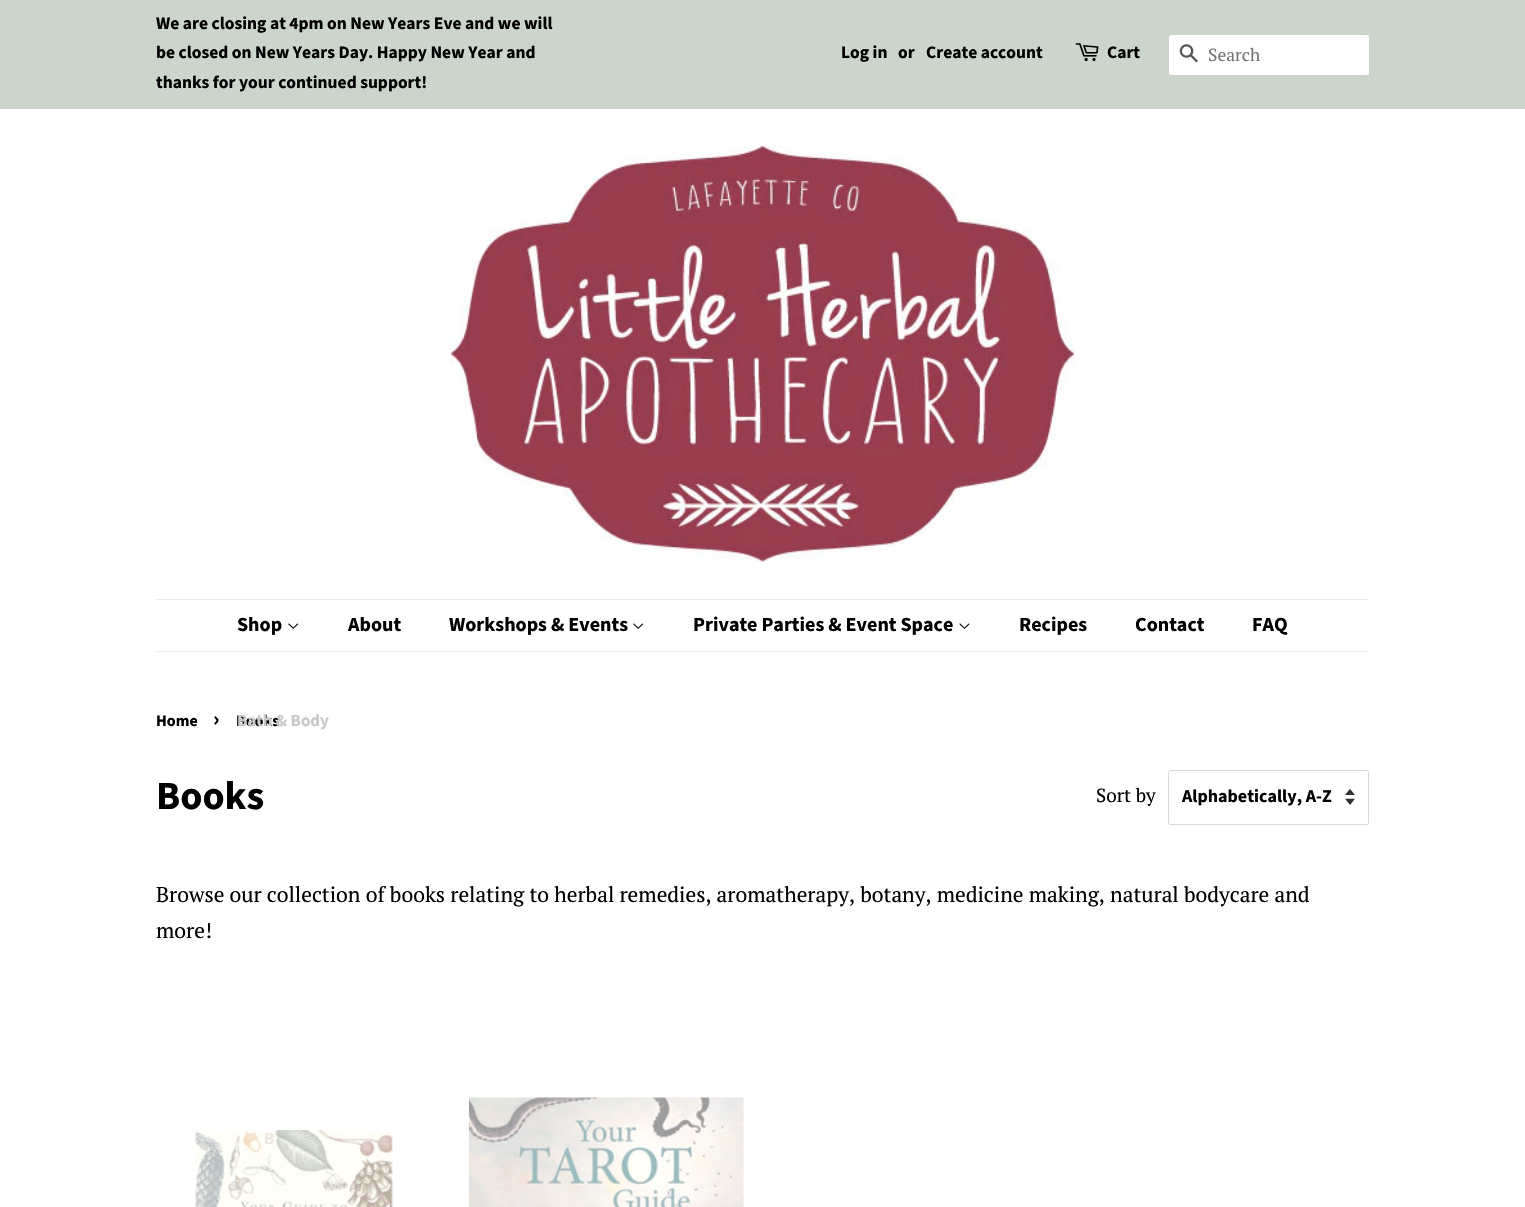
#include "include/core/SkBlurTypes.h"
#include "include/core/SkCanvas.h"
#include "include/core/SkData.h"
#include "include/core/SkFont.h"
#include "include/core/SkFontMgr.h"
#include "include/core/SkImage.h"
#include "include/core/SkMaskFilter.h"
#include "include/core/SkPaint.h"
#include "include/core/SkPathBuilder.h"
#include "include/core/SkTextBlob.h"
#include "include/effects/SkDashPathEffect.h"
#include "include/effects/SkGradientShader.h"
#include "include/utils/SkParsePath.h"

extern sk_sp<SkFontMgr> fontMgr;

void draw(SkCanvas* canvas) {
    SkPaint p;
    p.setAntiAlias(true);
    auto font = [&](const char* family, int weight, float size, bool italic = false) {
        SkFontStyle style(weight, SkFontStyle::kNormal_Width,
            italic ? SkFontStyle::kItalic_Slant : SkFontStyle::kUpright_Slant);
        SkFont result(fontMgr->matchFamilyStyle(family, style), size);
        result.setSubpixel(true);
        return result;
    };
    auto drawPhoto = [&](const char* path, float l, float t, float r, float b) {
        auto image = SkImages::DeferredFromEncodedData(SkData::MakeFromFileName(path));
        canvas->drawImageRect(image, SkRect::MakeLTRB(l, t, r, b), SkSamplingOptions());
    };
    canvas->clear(0xFFFFFFFF);
    p.setColor(0xFFCBD5CC);
    canvas->drawRect(SkRect::MakeLTRB(0, 0, 1525, 109), p);
    auto font1 = font("Source Sans Pro", 700, 17.5f);
    p.setColor(0xFF000000);
    {
        const struct { const char* s; float x, y; } items[] = {
            {"We are closing at 4pm on New Years Eve and we will", 156, 29},
            {"be closed on New Years Day. Happy New Year and", 156, 58},
            {"thanks for your continued support!", 156, 88},
            {"Log in", 841, 58},
            {"or", 898, 58},
            {"Create account", 926, 58},
        };
        for (auto [s, x, y] : items) {
            canvas->drawString(s, x, y, font1, p);
        }
    }
    drawPhoto("media/1.png", 1075, 43, 1099, 62);
    canvas->drawString("Cart", 1107, 58, font1, p);
    p.setColor(0xFFFFFFFF);
    canvas->drawRoundRect(SkRect::MakeLTRB(1169, 35, 1369, 75), 2.5f, 2.5f, p);
    drawPhoto("media/2.png", 1179, 44, 1198, 63);
    auto font2 = font("PT Serif", 400, 17.5f);
    p.setColor(0xFF757575);
    canvas->drawString("Search", 1208, 61, font2, p);
    drawPhoto("media/3.png", 450, 146, 1075, 562);
    p.setColor(0xFFEFEBEB);
    canvas->drawRect(SkRect::MakeLTRB(156, 599, 1369, 600), p);
    canvas->drawRect(SkRect::MakeLTRB(156, 651, 1369, 652), p);
    auto font3 = font("Source Sans Pro", 700, 20);
    p.setColor(0xFF000000);
    canvas->drawString("Shop", 237, 631, font3, p);
    drawPhoto("media/4.png", 288, 623, 299, 629);
    auto font4 = font("Source Sans Pro", 700, 16);
    canvas->drawString("Books", 236, 726, font4, p);
    auto font5 = font("Source Sans Pro", 700, 17);
    p.setColor(0xFFC9C9C9);
    canvas->drawString("Bath & Body", 237, 726, font5, p);
    drawPhoto("media/7.png", 195, 1130, 394, 1207);
    p.setColor(0xFFEDE9E1);
    canvas->drawString("B", 264, 1144, font5, p);
    p.setColor(0xFF000000);
    canvas->drawString("About", 348, 631, font3, p);
    canvas->drawString("Workshops & Events", 449, 631, font3, p);
    drawPhoto("media/4.png", 633, 623, 644, 629);
    canvas->drawString("Private Parties & Event Space", 693, 631, font3, p);
    drawPhoto("media/5.png", 959, 623, 970, 629);
    {
        const struct { const char* s; float x, y; } items[] = {
            {"Recipes", 1019, 631},
            {"Contact", 1135, 631},
            {"FAQ", 1252, 631},
        };
        for (auto [s, x, y] : items) {
            canvas->drawString(s, x, y, font3, p);
        }
    }
    canvas->drawString("Home", 156, 726, font4, p);
    auto font6 = font("Source Sans Pro", 700, 22);
    canvas->drawString("›", 213, 726, font6, p);
    auto font7 = font("Source Sans Pro", 700, 40);
    canvas->drawString("Books", 156, 809, font7, p);
    auto font8 = font("PT Serif", 400, 19);
    canvas->drawString("Sort by", 1096, 802, font8, p);
    drawPhoto("media/6.png", 1345, 789, 1355, 805);
    p.setStyle(SkPaint::kStroke_Style);
    p.setStrokeWidth(1);
    p.setColor(0xFFD9D9D9);
    canvas->drawRoundRect(SkRect::MakeLTRB(1168.5f, 770.5f, 1368.5f, 824.5f), 2, 2, p);
    auto font9 = font("Source Sans Pro", 700, 18);
    p.setStyle(SkPaint::kFill_Style);
    p.setColor(0xFF000000);
    canvas->drawString("Alphabetically, A-Z", 1182, 802, font9, p);
    auto font10 = font("PT Serif", 400, 21.25f);
    canvas->drawString("Browse our collection of books relating to herbal remedies, aromatherapy, botany, medicine making, natural bodycare and", 156, 902, font10, p);
    canvas->drawString("more!", 156, 938, font10, p);
    drawPhoto("media/8.png", 468, 1097, 744, 1207);
}
